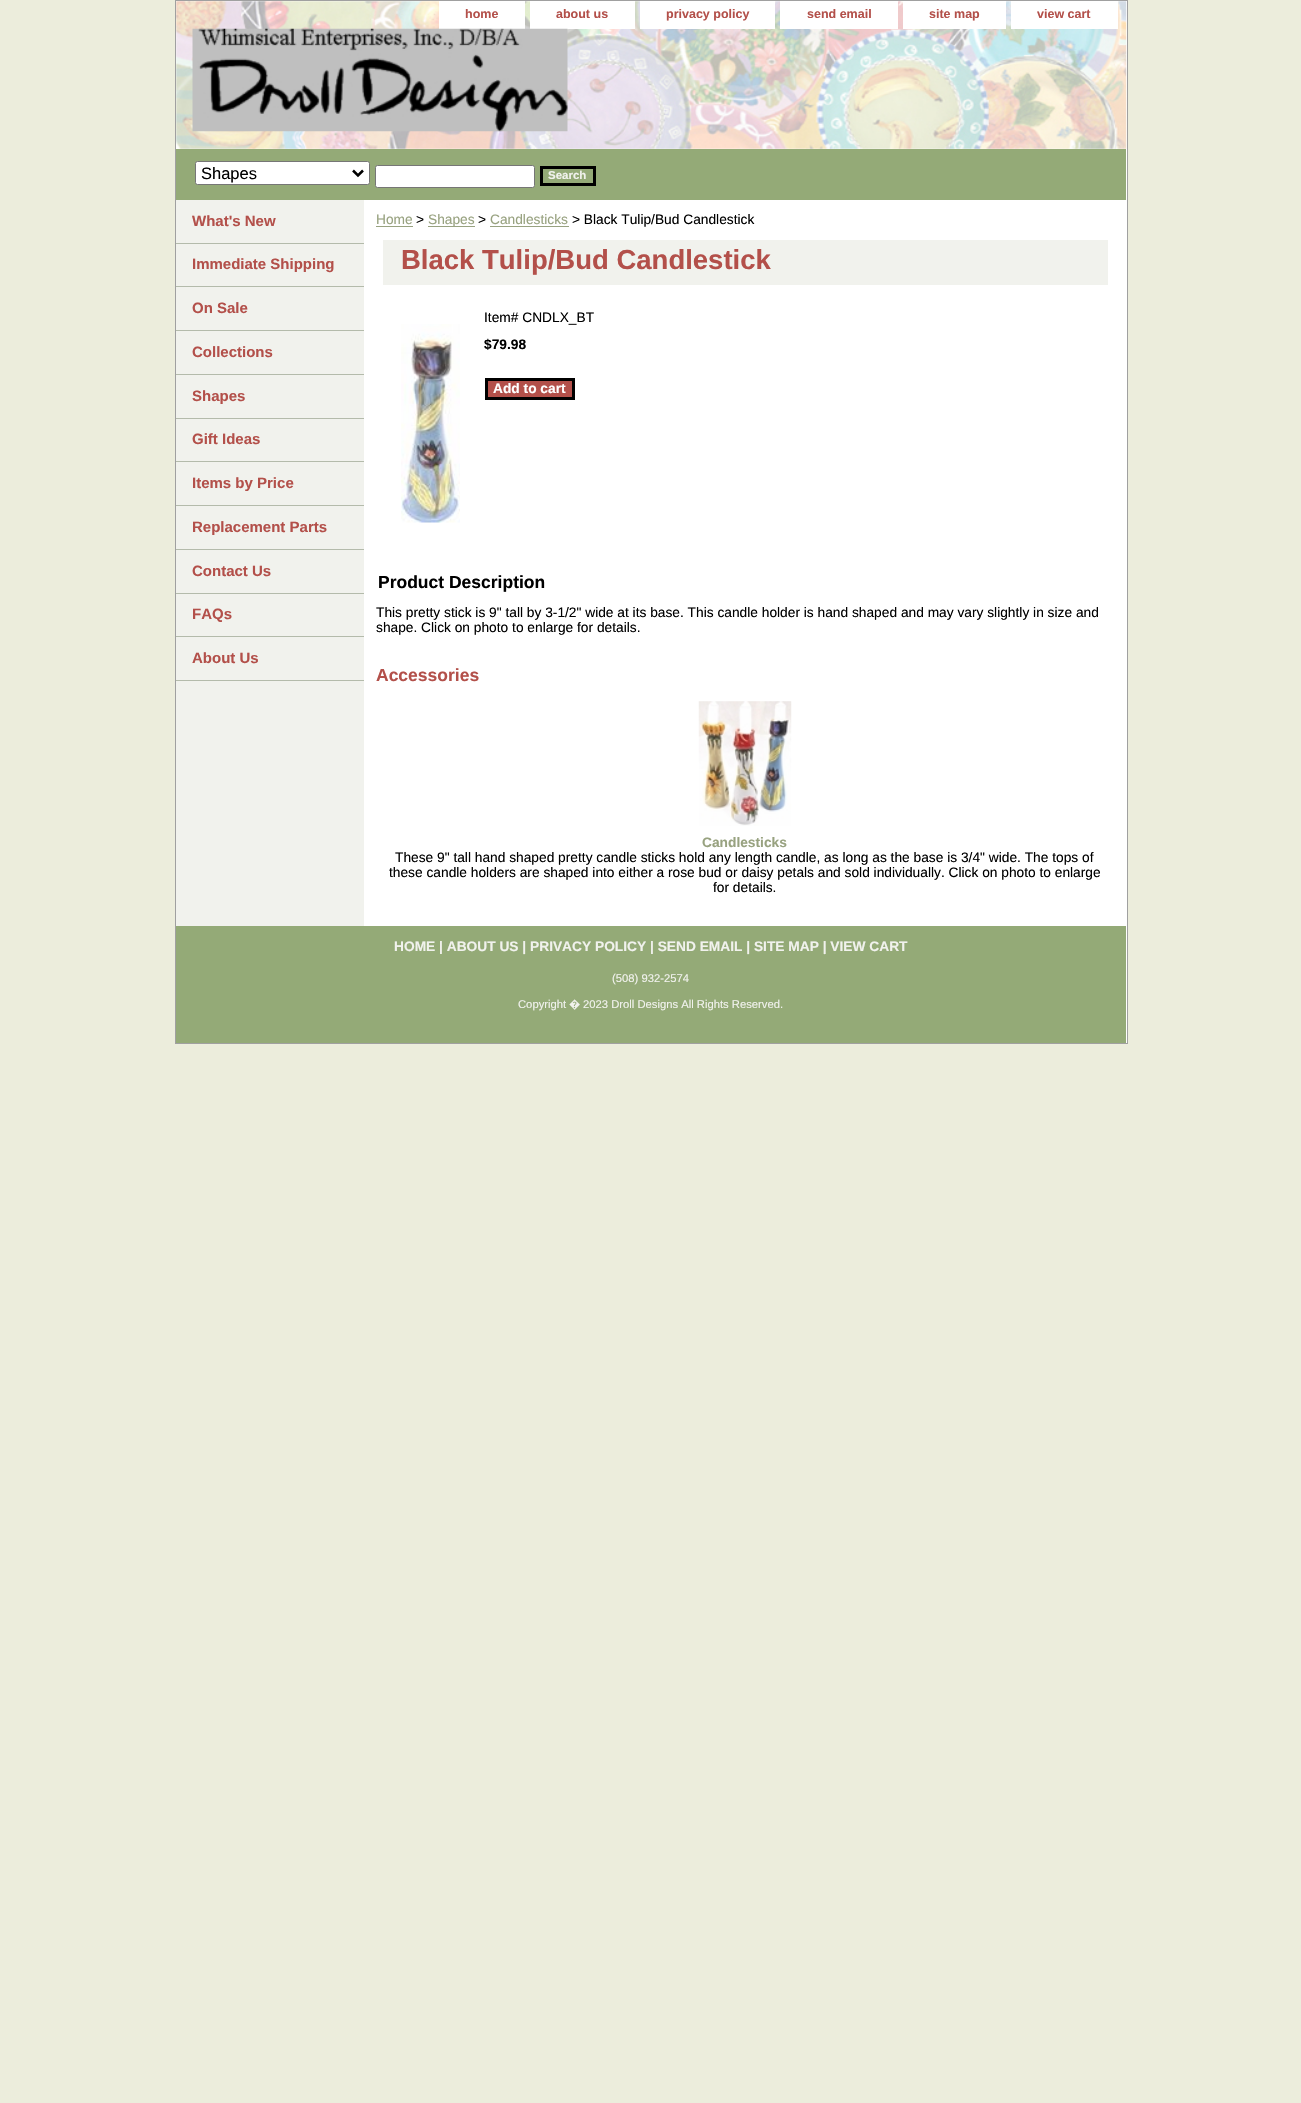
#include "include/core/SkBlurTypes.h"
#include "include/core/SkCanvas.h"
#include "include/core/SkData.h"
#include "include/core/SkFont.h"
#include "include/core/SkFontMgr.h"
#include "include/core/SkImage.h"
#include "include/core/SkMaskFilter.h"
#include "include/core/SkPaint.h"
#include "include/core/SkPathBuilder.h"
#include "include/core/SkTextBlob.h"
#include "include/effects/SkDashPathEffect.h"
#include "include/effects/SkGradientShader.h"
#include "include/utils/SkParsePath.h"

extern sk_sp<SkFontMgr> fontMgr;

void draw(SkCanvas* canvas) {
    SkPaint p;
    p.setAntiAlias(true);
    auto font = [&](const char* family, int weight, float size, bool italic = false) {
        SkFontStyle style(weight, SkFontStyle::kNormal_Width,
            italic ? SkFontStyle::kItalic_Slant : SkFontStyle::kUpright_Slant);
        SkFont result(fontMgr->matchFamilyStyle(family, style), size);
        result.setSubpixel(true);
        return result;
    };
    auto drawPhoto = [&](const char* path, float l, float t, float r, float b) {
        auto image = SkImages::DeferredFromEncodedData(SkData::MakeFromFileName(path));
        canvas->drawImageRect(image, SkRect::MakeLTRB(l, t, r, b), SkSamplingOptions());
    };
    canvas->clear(0xFFECEDDC);
    p.setColor(0xFFFFFFFF);
    canvas->drawRect(SkRect::MakeLTRB(175.5f, 0.5f, 1127.5f, 1043.5f), p);
    p.setStyle(SkPaint::kStroke_Style);
    p.setStrokeWidth(1);
    p.setColor(0xFFA0A0A0);
    canvas->drawRect(SkRect::MakeLTRB(175.5f, 0.5f, 1127.5f, 1043.5f), p);
    drawPhoto("media/1.png", 176, 1, 1127, 149);
    p.setStyle(SkPaint::kFill_Style);
    p.setColor(0xFFFFFFFF);
    canvas->drawRect(SkRect::MakeLTRB(439, 1, 525, 29), p);
    auto font1 = font("Liberation Sans", 700, 12.5f);
    p.setColor(0xFFB3504A);
    canvas->drawString("home", 465, 18, font1, p);
    p.setColor(0xFFFFFFFF);
    canvas->drawRect(SkRect::MakeLTRB(530, 1, 635, 29), p);
    p.setColor(0xFFB3504A);
    canvas->drawString("about us", 556, 18, font1, p);
    p.setColor(0xFFFFFFFF);
    canvas->drawRect(SkRect::MakeLTRB(640, 1, 775, 29), p);
    p.setColor(0xFFB3504A);
    canvas->drawString("privacy policy", 666, 18, font1, p);
    p.setColor(0xFFFFFFFF);
    canvas->drawRect(SkRect::MakeLTRB(780, 1, 898, 29), p);
    p.setColor(0xFFB3504A);
    canvas->drawString("send email", 807, 18, font1, p);
    p.setColor(0xFFFFFFFF);
    canvas->drawRect(SkRect::MakeLTRB(903, 1, 1006, 29), p);
    p.setColor(0xFFB3504A);
    canvas->drawString("site map", 929, 18, font1, p);
    p.setColor(0xFFFFFFFF);
    canvas->drawRect(SkRect::MakeLTRB(1011, 1, 1118, 29), p);
    p.setColor(0xFFB3504A);
    canvas->drawString("view cart", 1037, 18, font1, p);
    drawPhoto("media/2.png", 192, 28, 568, 132);
    p.setColor(0xFF94AA77);
    canvas->drawRect(SkRect::MakeLTRB(176, 149, 1126, 200), p);
    p.setColor(0xFFFFFFFF);
    canvas->drawRoundRect(SkRect::MakeLTRB(195.5f, 161.5f, 369.5f, 184.5f), 2, 2, p);
    p.setStyle(SkPaint::kStroke_Style);
    p.setColor(0xFF767676);
    canvas->drawRoundRect(SkRect::MakeLTRB(195.5f, 161.5f, 369.5f, 184.5f), 2, 2, p);
    p.setStrokeWidth(2.5f);
    p.setColor(0xFF000000);
    canvas->drawPath(SkPathBuilder().moveTo(353, 170.5f).lineTo(358, 175.5f).lineTo(363, 170.5f).detach(), p);
    auto font2 = font("Liberation Sans", 400, 16.5f);
    p.setStyle(SkPaint::kFill_Style);
    canvas->drawString("Shapes", 201, 179, font2, p);
    p.setColor(0xFFFFFFFF);
    canvas->drawRoundRect(SkRect::MakeLTRB(375.5f, 165.5f, 534.5f, 187.5f), 2, 2, p);
    p.setStyle(SkPaint::kStroke_Style);
    p.setStrokeWidth(1);
    p.setColor(0xFF767676);
    canvas->drawRoundRect(SkRect::MakeLTRB(375.5f, 165.5f, 534.5f, 187.5f), 2, 2, p);
    p.setStrokeWidth(3);
    p.setColor(0xFF000000);
    canvas->drawRect(SkRect::MakeLTRB(541.5f, 167.5f, 594.5f, 184.5f), p);
    auto font3 = font("Liberation Sans", 700, 11.5f);
    p.setStyle(SkPaint::kFill_Style);
    p.setColor(0xFFF1F2ED);
    canvas->drawString("Search", 548, 179, font3, p);
    canvas->drawRect(SkRect::MakeLTRB(176, 200, 364, 926), p);
    p.setColor(0xFFB4BBAB);
    canvas->drawRect(SkRect::MakeLTRB(176, 243, 364, 244), p);
    auto font4 = font("Liberation Sans", 700, 15);
    p.setColor(0xFFB3504A);
    canvas->drawString("What's New", 192, 226, font4, p);
    p.setColor(0xFFB4BBAB);
    canvas->drawRect(SkRect::MakeLTRB(176, 286, 364, 287), p);
    p.setColor(0xFFB3504A);
    canvas->drawString("Immediate Shipping", 192, 269, font4, p);
    p.setColor(0xFFB4BBAB);
    canvas->drawRect(SkRect::MakeLTRB(176, 330, 364, 331), p);
    p.setColor(0xFFB3504A);
    canvas->drawString("On Sale", 192, 313, font4, p);
    p.setColor(0xFFB4BBAB);
    canvas->drawRect(SkRect::MakeLTRB(176, 374, 364, 375), p);
    p.setColor(0xFFB3504A);
    canvas->drawString("Collections", 192, 357, font4, p);
    p.setColor(0xFFB4BBAB);
    canvas->drawRect(SkRect::MakeLTRB(176, 418, 364, 419), p);
    p.setColor(0xFFB3504A);
    canvas->drawString("Shapes", 192, 401, font4, p);
    p.setColor(0xFFB4BBAB);
    canvas->drawRect(SkRect::MakeLTRB(176, 461, 364, 462), p);
    p.setColor(0xFFB3504A);
    canvas->drawString("Gift Ideas", 192, 444, font4, p);
    p.setColor(0xFFB4BBAB);
    canvas->drawRect(SkRect::MakeLTRB(176, 505, 364, 506), p);
    p.setColor(0xFFB3504A);
    canvas->drawString("Items by Price", 192, 488, font4, p);
    p.setColor(0xFFB4BBAB);
    canvas->drawRect(SkRect::MakeLTRB(176, 549, 364, 550), p);
    p.setColor(0xFFB3504A);
    canvas->drawString("Replacement Parts", 192, 532, font4, p);
    p.setColor(0xFFB4BBAB);
    canvas->drawRect(SkRect::MakeLTRB(176, 593, 364, 594), p);
    p.setColor(0xFFB3504A);
    canvas->drawString("Contact Us", 192, 576, font4, p);
    p.setColor(0xFFB4BBAB);
    canvas->drawRect(SkRect::MakeLTRB(176, 636, 364, 637), p);
    p.setColor(0xFFB3504A);
    canvas->drawString("FAQs", 192, 619, font4, p);
    p.setColor(0xFFB4BBAB);
    canvas->drawRect(SkRect::MakeLTRB(176, 680, 364, 681), p);
    p.setColor(0xFFB3504A);
    canvas->drawString("About Us", 192, 663, font4, p);
    auto font5 = font("Liberation Sans", 400, 13.75f);
    p.setColor(0xFF98A280);
    canvas->drawString("Home", 376, 224, font5, p);
    canvas->drawRect(SkRect::MakeLTRB(376, 226, 413, 227), p);
    p.setColor(0xFF000000);
    canvas->drawString(">", 416, 224, font5, p);
    p.setColor(0xFF98A280);
    canvas->drawRect(SkRect::MakeLTRB(428, 226, 475, 227), p);
    canvas->drawString("Shapes", 428, 224, font5, p);
    p.setColor(0xFF000000);
    canvas->drawString(">", 478, 224, font5, p);
    p.setColor(0xFF98A280);
    canvas->drawString("Candlesticks", 490, 224, font5, p);
    canvas->drawRect(SkRect::MakeLTRB(490, 226, 569, 227), p);
    p.setColor(0xFF000000);
    canvas->drawString("> Black Tulip/Bud Candlestick", 572, 224, font5, p);
    p.setColor(0xFFF1F2ED);
    canvas->drawRect(SkRect::MakeLTRB(383, 240, 1108, 285), p);
    auto font6 = font("Liberation Sans", 700, 27.5f);
    p.setColor(0xFFB3504A);
    canvas->drawString("Black Tulip/Bud Candlestick", 401, 269, font6, p);
    drawPhoto("media/3.png", 401, 324, 460, 523);
    p.setColor(0xFF000000);
    canvas->drawString("Item# CNDLX_BT", 484, 322, font5, p);
    auto font7 = font("Liberation Sans", 700, 13.75f);
    canvas->drawString("$79.98", 484, 349, font7, p);
    p.setColor(0xFFB3504A);
    canvas->drawRect(SkRect::MakeLTRB(486.5f, 379.5f, 573.5f, 398.5f), p);
    p.setStyle(SkPaint::kStroke_Style);
    p.setColor(0xFF000000);
    canvas->drawRect(SkRect::MakeLTRB(486.5f, 379.5f, 573.5f, 398.5f), p);
    p.setStyle(SkPaint::kFill_Style);
    p.setColor(0xFFFFFFFF);
    canvas->drawString("Add to cart", 493, 393, font7, p);
    auto font8 = font("Liberation Sans", 700, 17.5f);
    p.setColor(0xFF000000);
    canvas->drawString("Product Description", 378, 588, font8, p);
    canvas->drawString("This pretty stick is 9\" tall by 3-1/2\" wide at its base. This candle holder is hand shaped and may vary slightly in size and", 376, 617, font5, p);
    canvas->drawString("shape. Click on photo to enlarge for details.", 376, 632, font5, p);
    p.setColor(0xFFB3504A);
    canvas->drawString("Accessories", 376, 681, font8, p);
    drawPhoto("media/4.png", 698, 701, 792, 826);
    p.setColor(0xFF98A280);
    canvas->drawString("Candlesticks", 702, 847, font7, p);
    p.setColor(0xFF000000);
    {
        const struct { const char* s; float x, y; } items[] = {
            {"These 9\" tall hand shaped pretty candle sticks hold any length candle, as long as the base is 3/4\" wide. The tops of", 395, 862},
            {"these candle holders are shaped into either a rose bud or daisy petals and sold individually. Click on photo to enlarge", 389, 877},
            {"for details.", 713, 892},
        };
        for (auto [s, x, y] : items) {
            canvas->drawString(s, x, y, font5, p);
        }
    }
    p.setColor(0xFF94AA77);
    canvas->drawRect(SkRect::MakeLTRB(176, 926, 1126, 1043), p);
    p.setColor(0xFFF1F2ED);
    canvas->drawString("HOME | ABOUT US | PRIVACY POLICY | SEND EMAIL | SITE MAP | VIEW CART", 394, 951, font7, p);
    auto font9 = font("Liberation Sans", 400, 11.25f);
    canvas->drawString("(508) 932-2574", 612, 982, font9, p);
    canvas->drawString("Copyright", 518, 1008, font9, p);
    auto font10 = font("Noto Sans", 400, 11.25f);
    canvas->drawString("�", 569, 1008, font10, p);
    canvas->drawString("2023 Droll Designs All Rights Reserved.", 583, 1008, font9, p);
}
